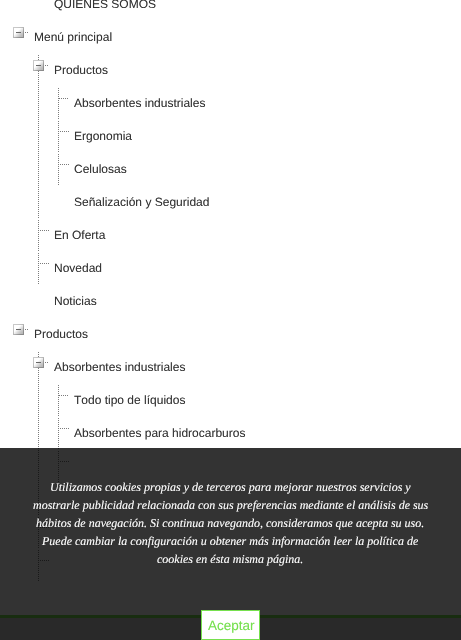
#include "include/core/SkBlurTypes.h"
#include "include/core/SkCanvas.h"
#include "include/core/SkData.h"
#include "include/core/SkFont.h"
#include "include/core/SkFontMgr.h"
#include "include/core/SkImage.h"
#include "include/core/SkMaskFilter.h"
#include "include/core/SkPaint.h"
#include "include/core/SkPathBuilder.h"
#include "include/core/SkTextBlob.h"
#include "include/effects/SkDashPathEffect.h"
#include "include/effects/SkGradientShader.h"
#include "include/utils/SkParsePath.h"

extern sk_sp<SkFontMgr> fontMgr;

void draw(SkCanvas* canvas) {
    SkPaint p;
    p.setAntiAlias(true);
    auto font = [&](const char* family, int weight, float size, bool italic = false) {
        SkFontStyle style(weight, SkFontStyle::kNormal_Width,
            italic ? SkFontStyle::kItalic_Slant : SkFontStyle::kUpright_Slant);
        SkFont result(fontMgr->matchFamilyStyle(family, style), size);
        result.setSubpixel(true);
        return result;
    };
    auto drawPhoto = [&](const char* path, float l, float t, float r, float b) {
        auto image = SkImages::DeferredFromEncodedData(SkData::MakeFromFileName(path));
        canvas->drawImageRect(image, SkRect::MakeLTRB(l, t, r, b), SkSamplingOptions());
    };
    canvas->clear(0xFFCCCCCC);
    p.setColor(0xFFFFFFFF);
    canvas->drawRect(SkRect::MakeLTRB(0, 0, 461, 615), p);
    auto font1 = font("Liberation Sans", 400, 12);
    p.setColor(0xFF333333);
    canvas->drawString("QUIENES SOMOS", 54, 8, font1, p);
    drawPhoto("media/1.png", 25, 32, 28, 33);
    drawPhoto("media/2.png", 13, 27, 24, 38);
    canvas->drawString("Menú principal", 34, 41, font1, p);
    drawPhoto("media/3.png", 38, 55, 39, 218);
    drawPhoto("media/1.png", 45, 65, 48, 66);
    drawPhoto("media/2.png", 33, 60, 44, 71);
    canvas->drawString("Productos", 54, 74, font1, p);
    drawPhoto("media/4.png", 58, 88, 59, 119);
    drawPhoto("media/5.png", 59, 98, 68, 99);
    canvas->drawString("Absorbentes industriales", 74, 107, font1, p);
    drawPhoto("media/4.png", 58, 121, 59, 152);
    drawPhoto("media/5.png", 60, 131, 69, 132);
    canvas->drawString("Ergonomia", 74, 140, font1, p);
    drawPhoto("media/4.png", 58, 154, 59, 185);
    drawPhoto("media/5.png", 60, 164, 69, 165);
    canvas->drawString("Celulosas", 74, 173, font1, p);
    canvas->drawString("Señalización y Seguridad", 74, 206, font1, p);
    drawPhoto("media/4.png", 38, 220, 39, 251);
    drawPhoto("media/5.png", 40, 230, 49, 231);
    canvas->drawString("En Oferta", 54, 239, font1, p);
    drawPhoto("media/4.png", 38, 253, 39, 284);
    drawPhoto("media/5.png", 40, 263, 49, 264);
    canvas->drawString("Novedad", 54, 272, font1, p);
    canvas->drawString("Noticias", 54, 305, font1, p);
    drawPhoto("media/1.png", 25, 329, 28, 330);
    drawPhoto("media/2.png", 13, 324, 24, 335);
    canvas->drawString("Productos", 34, 338, font1, p);
    drawPhoto("media/3.png", 38, 352, 39, 515);
    drawPhoto("media/1.png", 45, 362, 48, 363);
    drawPhoto("media/2.png", 33, 357, 44, 368);
    canvas->drawString("Absorbentes industriales", 54, 371, font1, p);
    drawPhoto("media/4.png", 58, 385, 59, 416);
    drawPhoto("media/5.png", 59, 395, 68, 396);
    canvas->drawString("Todo tipo de líquidos", 74, 404, font1, p);
    drawPhoto("media/4.png", 58, 418, 59, 449);
    drawPhoto("media/5.png", 60, 428, 69, 429);
    canvas->drawString("Absorbentes para hidrocarburos", 74, 437, font1, p);
    drawPhoto("media/4.png", 58, 451, 59, 482);
    drawPhoto("media/5.png", 60, 461, 69, 462);
    drawPhoto("media/4.png", 38, 517, 39, 548);
    drawPhoto("media/5.png", 40, 527, 49, 528);
    drawPhoto("media/4.png", 38, 550, 39, 581);
    drawPhoto("media/5.png", 40, 560, 49, 561);
    p.setColor(0xFF76E04E);
    canvas->drawRect(SkRect::MakeLTRB(0, 615, 461, 618), p);
    p.setColor(0xCC000000);
    canvas->drawRect(SkRect::MakeLTRB(0, 448, 461, 640), p);
    auto font2 = font("Liberation Serif", 400, 12, true);
    p.setColor(0xFFFFFFFF);
    {
        const struct { const char* s; float x, y; } items[] = {
            {"Utilizamos cookies propias y de terceros para mejorar nuestros servicios y", 50, 491},
            {"mostrarle publicidad relacionada con sus preferencias mediante el análisis de sus", 33, 509},
            {"hábitos de navegación. Si continua navegando, consideramos que acepta su uso.", 36, 527},
            {"Puede cambiar la configuración u obtener más información leer la política de", 42, 545},
            {"cookies en ésta misma página.", 157, 563},
        };
        for (auto [s, x, y] : items) {
            canvas->drawString(s, x, y, font2, p);
        }
    }
    canvas->drawRect(SkRect::MakeLTRB(201.5f, 610.5f, 259.5f, 639.5f), p);
    p.setStyle(SkPaint::kStroke_Style);
    p.setStrokeWidth(1);
    p.setColor(0xFF76E04E);
    canvas->drawRect(SkRect::MakeLTRB(201.5f, 610.5f, 259.5f, 639.5f), p);
    auto font3 = font("Liberation Sans", 400, 13.5f);
    p.setStyle(SkPaint::kFill_Style);
    canvas->drawString("Aceptar", 208, 630, font3, p);
}
